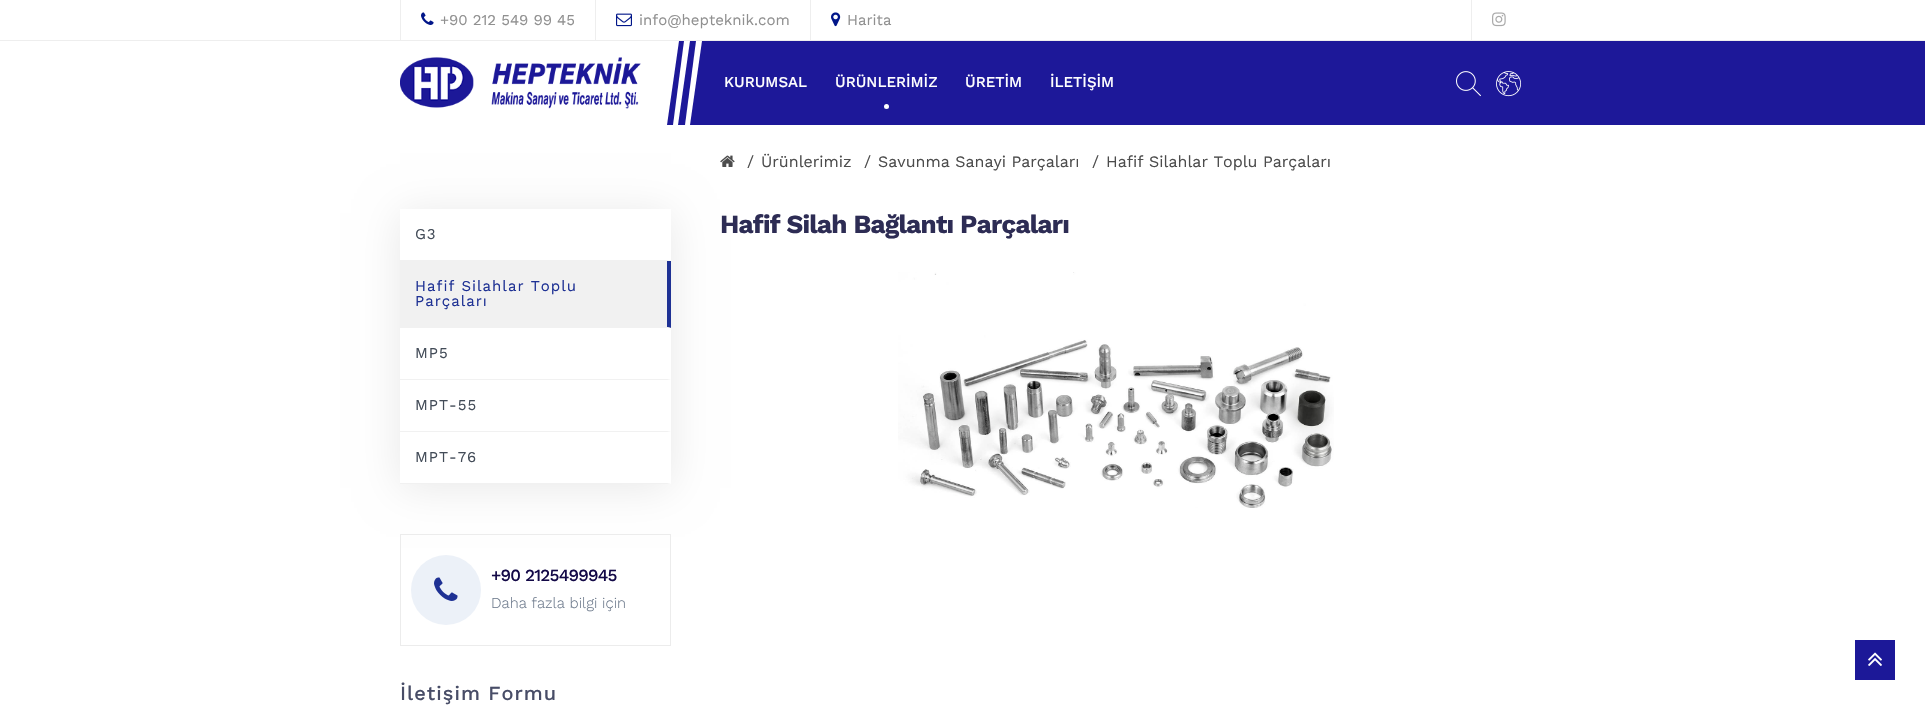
#include "include/core/SkBlurTypes.h"
#include "include/core/SkCanvas.h"
#include "include/core/SkData.h"
#include "include/core/SkFont.h"
#include "include/core/SkFontMgr.h"
#include "include/core/SkImage.h"
#include "include/core/SkMaskFilter.h"
#include "include/core/SkPaint.h"
#include "include/core/SkPathBuilder.h"
#include "include/core/SkTextBlob.h"
#include "include/effects/SkDashPathEffect.h"
#include "include/effects/SkGradientShader.h"
#include "include/utils/SkParsePath.h"

extern sk_sp<SkFontMgr> fontMgr;

void draw(SkCanvas* canvas) {
    SkPaint p;
    p.setAntiAlias(true);
    auto font = [&](const char* family, int weight, float size, bool italic = false) {
        SkFontStyle style(weight, SkFontStyle::kNormal_Width,
            italic ? SkFontStyle::kItalic_Slant : SkFontStyle::kUpright_Slant);
        SkFont result(fontMgr->matchFamilyStyle(family, style), size);
        result.setSubpixel(true);
        return result;
    };
    auto drawTracked = [&](const char* s, float x, float y, const SkFont& font, const SkPaint& ink, float letter, float word) {
        std::vector<SkGlyphID> glyphs(font.countText(s, strlen(s), SkTextEncoding::kUTF8));
        std::vector<float> xs(glyphs.size());
        font.textToGlyphs(s, strlen(s), SkTextEncoding::kUTF8, glyphs);
        font.getXPos(glyphs, xs, x);
        float extra = 0;
        for (size_t i = 0; i < glyphs.size(); i++) {
            xs[i] += extra;
            extra += letter + word * (glyphs[i] == font.unicharToGlyph(' '));
        }
        canvas->drawTextBlob(SkTextBlob::MakeFromPosHGlyphs(glyphs, xs, y, font), 0, 0, ink);
    };
    auto drawPhoto = [&](const char* path, float l, float t, float r, float b) {
        auto image = SkImages::DeferredFromEncodedData(SkData::MakeFromFileName(path));
        canvas->drawImageRect(image, SkRect::MakeLTRB(l, t, r, b), SkSamplingOptions());
    };
    canvas->clear(0xFFFFFFFF);
    p.setColor(0xFFEEEEEE);
    canvas->drawRect(SkRect::MakeLTRB(0, 40, 1925, 41), p);
    canvas->drawRect(SkRect::MakeLTRB(400, 0, 401, 40), p);
    drawPhoto("media/1.png", 421, 12, 434, 25);
    auto font1 = font("Work Sans", 400, 15);
    p.setColor(0xFF909090);
    canvas->drawString("+90 212 549 99 45", 440, 25, font1, p);
    p.setColor(0xFFEEEEEE);
    canvas->drawRect(SkRect::MakeLTRB(595, 0, 596, 40), p);
    drawPhoto("media/2.png", 616, 13, 632, 27);
    p.setColor(0xFF909090);
    canvas->drawString("info@hepteknik.com", 639, 25, font1, p);
    p.setColor(0xFFEEEEEE);
    canvas->drawRect(SkRect::MakeLTRB(810, 0, 811, 40), p);
    drawPhoto("media/3.png", 831, 12, 841, 27);
    p.setColor(0xFF909090);
    canvas->drawString("Harita", 847, 25, font1, p);
    p.setColor(0xFFEEEEEE);
    canvas->drawRect(SkRect::MakeLTRB(1471, 0, 1472, 40), p);
    drawPhoto("media/4.png", 1492, 12, 1506, 27);
    p.setColor(0xFF1D1899);
    canvas->drawRect(SkRect::MakeLTRB(667, 41, 1925, 125), p);
    drawPhoto("media/5.png", 400, 57, 641, 109);
    p.setColor(0xFFFFFFFF);
    canvas->drawPath(SkPathBuilder().moveTo(661, 41).lineTo(661, 100).lineTo(662, 125).lineTo(667, 125).lineTo(679, 41).close().detach(), p);
    canvas->drawPath(SkPathBuilder().moveTo(684, 41).lineTo(673, 125).lineTo(678, 125).lineTo(690, 41).close().detach(), p);
    canvas->drawPath(SkPathBuilder().moveTo(696, 41).lineTo(685, 125).lineTo(690, 125).lineTo(702, 41).close().detach(), p);
    auto font2 = font("Work Sans", 500, 15);
    canvas->drawString("KURUMSAL", 724, 87, font2, p);
    canvas->drawString("ÜRÜNLERİMİZ", 835, 87, font2, p);
    canvas->drawCircle(886.5f, 106.5f, 2.5f, p);
    canvas->drawString("ÜRETİM", 965, 87, font2, p);
    canvas->drawString("İLETİŞİM", 1050, 87, font2, p);
    drawPhoto("media/6.png", 1456, 71, 1481, 97);
    drawPhoto("media/7.png", 1496, 71, 1522, 97);
    canvas->save();
    canvas->clipPath(SkPathBuilder(SkPathFillType::kEvenOdd).moveTo(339, 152).lineTo(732, 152).lineTo(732, 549).lineTo(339, 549).close().moveTo(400, 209).lineTo(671, 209).lineTo(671, 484).lineTo(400, 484).close().detach(), true);
    p.setColor(0xFFE8E8E8);
    p.setMaskFilter(SkMaskFilter::MakeBlur(kNormal_SkBlurStyle, 20));
    canvas->drawRect(SkRect::MakeLTRB(400, 213, 671, 488), p);
    p.setMaskFilter(nullptr);
    canvas->restore();
    drawPhoto("media/8.png", 720, 155, 735, 167);
    auto font3 = font("Work Sans", 400, 16);
    p.setColor(0xFF4C4C4C);
    {
        const struct { const char* s; float x, y; } items[] = {
            {"/", 747, 167},
            {"Ürünlerimiz", 761, 167},
            {"/", 864, 167},
            {"Savunma Sanayi Parçaları", 878, 167},
            {"/", 1092, 167},
            {"Hafif Silahlar Toplu Parçaları", 1106, 167},
        };
        for (auto [s, x, y] : items) {
            canvas->drawString(s, x, y, font3, p);
        }
    }
    p.setColor(0xFFF1F1F1);
    canvas->drawPath(SkPathBuilder().moveTo(671, 261).lineTo(400, 261).lineTo(400, 260).lineTo(667, 260).close().detach(), p);
    p.setColor(0xFF434C58);
    drawTracked("G3", 415, 239, font1, p, 1, 0);
    p.setColor(0xFFF1F1F1);
    canvas->drawRect(SkRect::MakeLTRB(400, 261, 671, 328), p);
    p.setColor(0xFF1E3194);
    canvas->drawPath(SkPathBuilder().moveTo(671, 261).lineTo(671, 328).lineTo(667, 327).lineTo(667, 261).close().detach(), p);
    p.setColor(0xFFF1F1F1);
    canvas->drawPath(SkPathBuilder().moveTo(671, 328).lineTo(400, 328).lineTo(400, 327).lineTo(667, 327).close().detach(), p);
    p.setColor(0xFF1E3194);
    drawTracked("Hafif Silahlar Toplu", 415, 291, font1, p, 1, 0);
    drawTracked("Parçaları", 415, 306, font1, p, 1, 0);
    p.setColor(0xFFF1F1F1);
    canvas->drawPath(SkPathBuilder().moveTo(671, 380).lineTo(400, 380).lineTo(400, 379).lineTo(667, 379).close().detach(), p);
    p.setColor(0xFF434C58);
    drawTracked("MP5", 415, 358, font1, p, 1, 0);
    p.setColor(0xFFF1F1F1);
    canvas->drawPath(SkPathBuilder().moveTo(671, 432).lineTo(400, 432).lineTo(400, 431).lineTo(667, 431).close().detach(), p);
    p.setColor(0xFF434C58);
    drawTracked("MPT-55", 415, 410, font1, p, 1, 0);
    p.setColor(0xFFF1F1F1);
    canvas->drawPath(SkPathBuilder().moveTo(671, 484).lineTo(400, 484).lineTo(400, 483).lineTo(667, 483).close().detach(), p);
    p.setColor(0xFF434C58);
    drawTracked("MPT-76", 415, 462, font1, p, 1, 0);
    p.setStyle(SkPaint::kStroke_Style);
    p.setStrokeWidth(1);
    p.setColor(0xFFECECEC);
    canvas->drawRect(SkRect::MakeLTRB(400.5f, 534.5f, 670.5f, 645.5f), p);
    p.setStyle(SkPaint::kFill_Style);
    p.setColor(0xFFECF1F8);
    canvas->drawCircle(446, 590, 35, p);
    drawPhoto("media/9.png", 434, 577, 458, 601);
    auto font4 = font("Work Sans", 500, 17);
    p.setColor(0xFF130947);
    drawTracked("+90 2125499945", 491, 581, font4, p, -0.75f, 0);
    auto font5 = font("Work Sans", 300, 15);
    p.setColor(0xFF6D7A8C);
    canvas->drawString("Daha fazla bilgi için", 491, 608, font5, p);
    auto font6 = font("Work Sans", 500, 20);
    p.setColor(0xFF484D67);
    drawTracked("İletişim Formu", 400, 700, font6, p, 1, 0);
    auto font7 = font("Work Sans", 700, 26);
    p.setColor(0xFF2D2C54);
    drawTracked("Hafif Silah Bağlantı Parçaları", 720, 233, font7, p, -0.75f, 0);
    drawPhoto("media/10.png", 898, 272, 1334, 508);
    p.setColor(0xFF1C1898);
    canvas->drawRect(SkRect::MakeLTRB(1855, 640, 1895, 680), p);
    drawPhoto("media/11.png", 1868, 652, 1882, 666);
}
